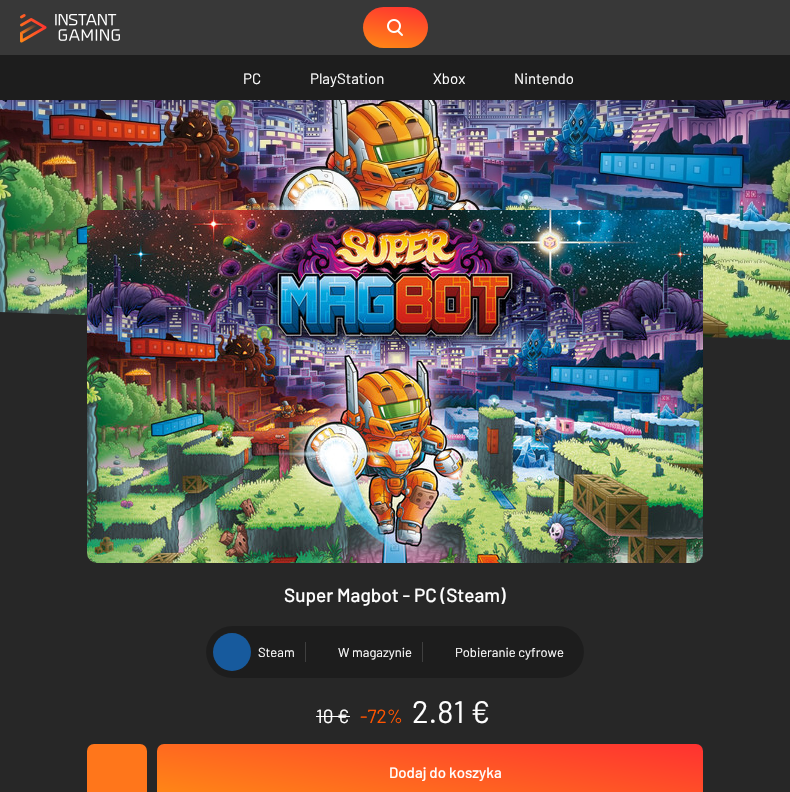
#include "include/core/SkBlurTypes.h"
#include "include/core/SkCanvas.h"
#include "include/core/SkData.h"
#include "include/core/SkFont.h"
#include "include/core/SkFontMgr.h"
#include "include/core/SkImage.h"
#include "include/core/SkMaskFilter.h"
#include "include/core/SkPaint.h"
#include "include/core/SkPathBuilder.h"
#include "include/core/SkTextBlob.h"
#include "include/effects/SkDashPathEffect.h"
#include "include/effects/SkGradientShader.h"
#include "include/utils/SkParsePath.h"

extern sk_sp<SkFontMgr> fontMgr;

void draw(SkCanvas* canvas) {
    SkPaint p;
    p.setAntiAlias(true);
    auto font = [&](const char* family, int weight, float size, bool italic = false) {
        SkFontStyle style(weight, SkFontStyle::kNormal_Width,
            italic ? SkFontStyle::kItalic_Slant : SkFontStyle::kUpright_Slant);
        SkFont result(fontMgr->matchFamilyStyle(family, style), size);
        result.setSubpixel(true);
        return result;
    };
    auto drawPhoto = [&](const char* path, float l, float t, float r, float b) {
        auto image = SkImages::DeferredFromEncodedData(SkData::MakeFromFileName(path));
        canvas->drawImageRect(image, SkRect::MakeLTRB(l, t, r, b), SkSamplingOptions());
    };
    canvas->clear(0xFF272727);
    p.setColor(0xFF383838);
    canvas->drawRect(SkRect::MakeLTRB(0, 0, 790, 55), p);
    drawPhoto("media/1.png", 20, 14, 120, 43);
    {
        const SkColor colors[] = {0xFFFF8A15, 0xFFFF3131};
        const float stops[] = {0, 1};
        const SkPoint ends[] = {{391, 53}, {400, 2.1f}};
        p.setShader(SkGradientShader::MakeLinear(ends, colors, stops, 2, SkTileMode::kClamp));
        p.setAlpha(255);
    }
    canvas->drawRoundRect(SkRect::MakeLTRB(363, 7, 428, 48), 20.5f, 20.5f, p);
    drawPhoto("media/2.png", 387, 19, 403, 36);
    p.setShader(nullptr);
    p.setColor(0xFF1D1D1D);
    canvas->drawRect(SkRect::MakeLTRB(0, 55, 790, 100), p);
    auto font1 = font("Barlow", 400, 15);
    p.setColor(0xFFFFFFFF);
    {
        const struct { const char* s; float x, y; } items[] = {
            {"PC", 243, 84},
            {"PlayStation", 310, 84},
            {"Xbox", 433, 84},
            {"Nintendo", 514, 84},
        };
        for (auto [s, x, y] : items) {
            canvas->drawString(s, x, y, font1, p);
        }
    }
    drawPhoto("media/3.png", 0, 100, 790, 340);
    canvas->save();
    canvas->clipRect(SkRect::MakeLTRB(0, 55, 790, 355));
    p.setColor(0xFF272727);
    canvas->drawPath(SkPathBuilder().moveTo(-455, 296).lineTo(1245, 356).lineTo(-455, 356).close().detach(), p);
    canvas->restore();
    drawPhoto("media/4.png", 87, 210, 703, 563);
    auto font2 = font("Barlow", 500, 19);
    p.setColor(0xFFFFFFFF);
    canvas->drawString("Super Magbot - PC (Steam)", 284, 602, font2, p);
    p.setColor(0xFF1D1D1D);
    canvas->drawRoundRect(SkRect::MakeLTRB(206, 626, 584, 678), 26, 26, p);
    p.setColor(0xFF175A9D);
    canvas->drawCircle(232, 652, 19, p);
    auto font3 = font("Barlow", 400, 13);
    p.setColor(0xFFFFFFFF);
    canvas->drawString("Steam", 258, 657, font3, p);
    p.setColor(0xFF3F3F3F);
    canvas->drawRect(SkRect::MakeLTRB(305, 642, 306, 662), p);
    p.setColor(0xFFFFFFFF);
    canvas->drawString("W magazynie", 338, 657, font3, p);
    p.setColor(0xFF3F3F3F);
    canvas->drawRect(SkRect::MakeLTRB(422, 642, 423, 662), p);
    p.setColor(0xFFFFFFFF);
    canvas->drawString("Pobieranie cyfrowe", 455, 657, font3, p);
    auto font4 = font("Barlow", 400, 19);
    canvas->drawString("10 €", 316, 723, font4, p);
    canvas->drawRect(SkRect::MakeLTRB(316, 716, 350, 717), p);
    p.setColor(0xFFFF5400);
    canvas->drawString("-72%", 360, 723, font4, p);
    auto font5 = font("Barlow", 400, 31);
    p.setColor(0xFFFFFFFF);
    canvas->drawString("2.81 €", 412, 723, font5, p);
    p.setColor(0xFFFF761B);
    canvas->drawRoundRect(SkRect::MakeLTRB(87, 744, 147, 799), 7, 7, p);
    {
        const SkColor colors[] = {0xFFFF8A15, 0xFFFF3131};
        const float stops[] = {0, 1};
        const SkPoint ends[] = {{417, 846}, {443, 698}};
        p.setShader(SkGradientShader::MakeLinear(ends, colors, stops, 2, SkTileMode::kClamp));
        p.setAlpha(255);
    }
    canvas->drawRoundRect(SkRect::MakeLTRB(157, 744, 703, 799), 7, 7, p);
    auto font6 = font("Barlow", 500, 15);
    p.setShader(nullptr);
    p.setColor(0xFFFFFFFF);
    canvas->drawString("Dodaj do koszyka", 389, 778, font6, p);
}
